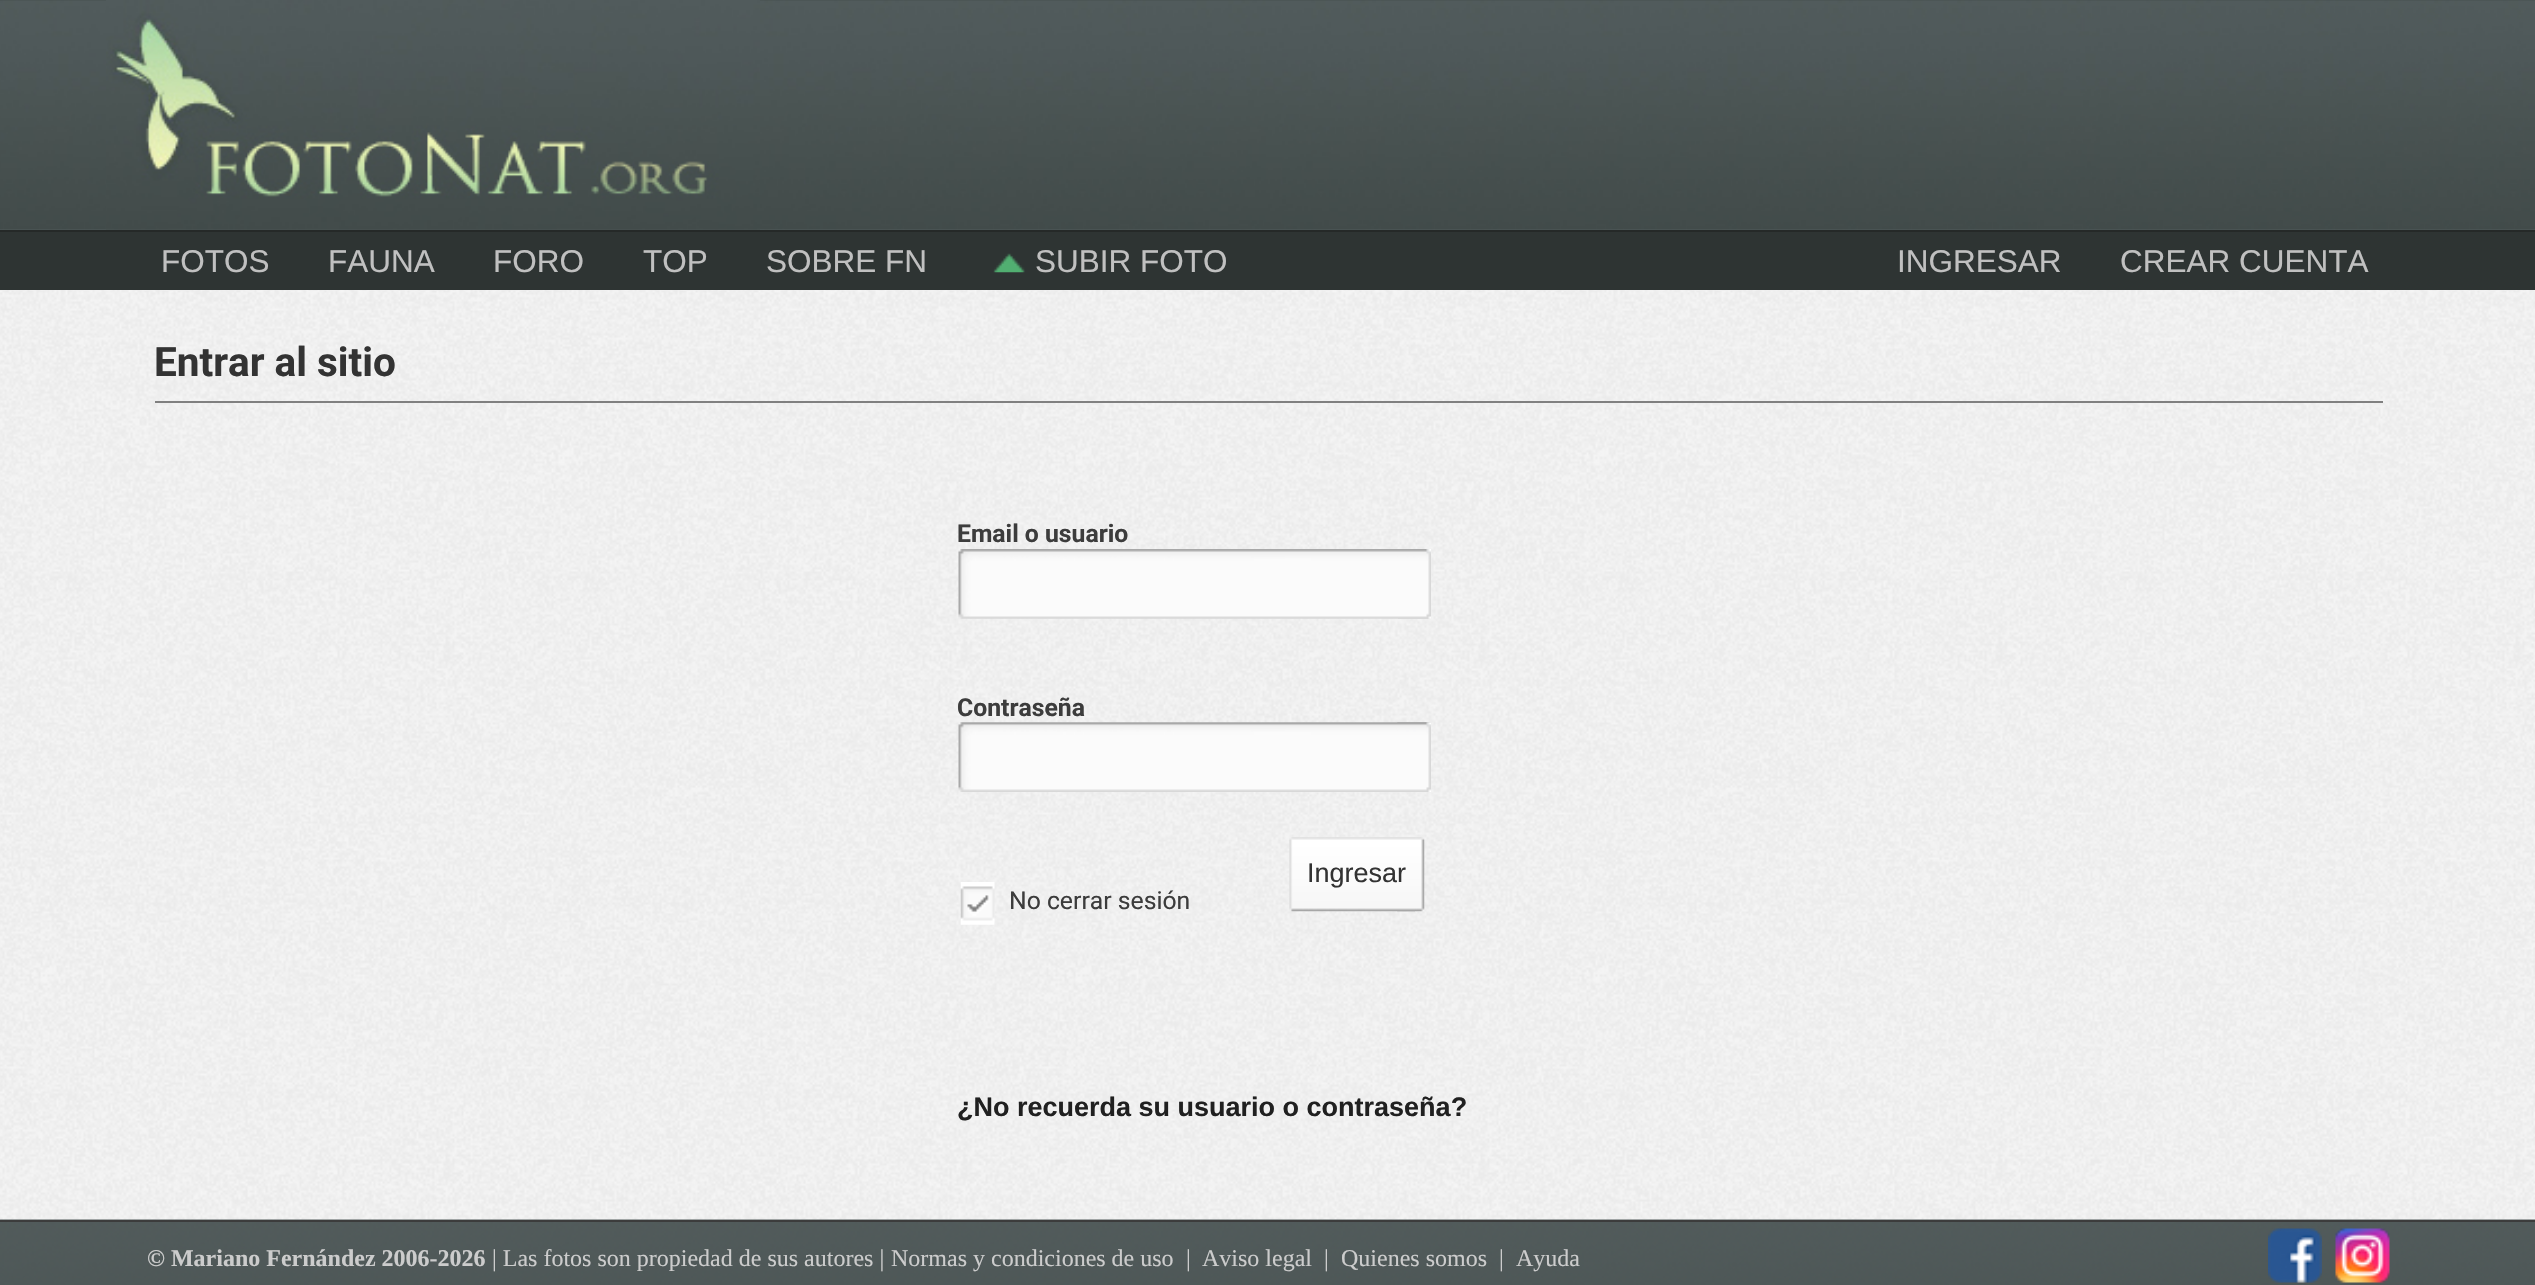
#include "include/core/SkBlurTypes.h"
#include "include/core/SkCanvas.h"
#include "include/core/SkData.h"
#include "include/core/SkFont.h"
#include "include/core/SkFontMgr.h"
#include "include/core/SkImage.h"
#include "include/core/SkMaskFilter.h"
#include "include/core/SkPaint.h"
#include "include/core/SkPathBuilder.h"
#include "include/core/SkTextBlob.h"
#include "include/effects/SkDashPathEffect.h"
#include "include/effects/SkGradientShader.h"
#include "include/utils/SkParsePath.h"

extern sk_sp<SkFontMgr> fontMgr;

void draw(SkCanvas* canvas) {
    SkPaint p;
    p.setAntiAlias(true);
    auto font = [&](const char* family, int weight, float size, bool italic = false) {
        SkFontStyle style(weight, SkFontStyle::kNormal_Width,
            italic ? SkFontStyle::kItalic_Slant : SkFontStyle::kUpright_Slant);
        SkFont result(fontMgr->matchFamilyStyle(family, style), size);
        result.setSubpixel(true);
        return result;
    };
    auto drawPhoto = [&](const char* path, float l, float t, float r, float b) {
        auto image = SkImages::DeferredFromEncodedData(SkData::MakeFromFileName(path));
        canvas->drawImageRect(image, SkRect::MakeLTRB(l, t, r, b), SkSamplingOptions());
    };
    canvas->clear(0xFFFFFFFF);
    drawPhoto("media/1.png", 0, 290, 2535, 1220);
    drawPhoto("media/2.png", 0, 0, 2535, 230);
    drawPhoto("media/3.png", 106, 0, 760, 230);
    p.setColor(0xFF252928);
    canvas->drawRect(SkRect::MakeLTRB(0, 230, 2535, 232), p);
    p.setColor(0xFF2E3433);
    canvas->drawRect(SkRect::MakeLTRB(0, 232, 2535, 290), p);
    auto font1 = font("Liberation Sans", 400, 31.5f);
    p.setColor(0xFFC0C0C0);
    {
        const struct { const char* s; float x, y; } items[] = {
            {"FOTOS", 161, 272},
            {"FAUNA", 328, 272},
            {"FORO", 493, 272},
            {"TOP", 643, 272},
            {"SOBRE FN", 766, 272},
        };
        for (auto [s, x, y] : items) {
            canvas->drawString(s, x, y, font1, p);
        }
    }
    drawPhoto("media/4.png", 993, 253, 1025, 273);
    {
        const struct { const char* s; float x, y; } items[] = {
            {"SUBIR FOTO", 1035, 272},
            {"INGRESAR", 1897, 272},
            {"CREAR CUENTA", 2120, 272},
        };
        for (auto [s, x, y] : items) {
            canvas->drawString(s, x, y, font1, p);
        }
    }
    auto font2 = font("Roboto", 700, 40.5f);
    p.setColor(0xFF333333);
    canvas->drawString("Entrar al sitio", 154, 376, font2, p);
    p.setColor(0xFF808080);
    canvas->drawRect(SkRect::MakeLTRB(155, 401, 2383, 403), p);
    auto font3 = font("Roboto", 700, 24.75f);
    p.setColor(0xFF3C3C3C);
    canvas->drawString("Email o usuario", 957, 542, font3, p);
    drawPhoto("media/5.png", 958, 549, 1431, 619);
    drawPhoto("media/6.png", 1398, 549, 1431, 619);
    canvas->drawString("Contraseña", 957, 716, font3, p);
    drawPhoto("media/7.png", 958, 722, 1431, 792);
    drawPhoto("media/8.png", 1397, 722, 1431, 792);
    drawPhoto("media/9.png", 1397, 837, 1425, 912);
    drawPhoto("media/10.png", 1289, 837, 1415, 912);
    auto font4 = font("Liberation Sans", 400, 27);
    p.setColor(0xFF333333);
    canvas->drawString("Ingresar", 1307, 882, font4, p);
    drawPhoto("media/11.png", 960, 882, 995, 925);
    auto font5 = font("Roboto", 400, 24.75f);
    p.setColor(0xFF3C3C3C);
    canvas->drawString("No cerrar sesión", 1009, 909, font5, p);
    auto font6 = font("Liberation Sans", 700, 27);
    p.setColor(0xFF202020);
    canvas->drawString("¿No recuerda su usuario o contraseña?", 957, 1116, font6, p);
    drawPhoto("media/12.png", 0, 1219, 2535, 1285);
    p.setColor(0xFF3C3C3C);
    canvas->drawRect(SkRect::MakeLTRB(0, 1220, 2535, 1222), p);
    auto font7 = font("Liberation Serif", 700, 24);
    p.setColor(0xFFCCCCCC);
    canvas->drawString("© Mariano Fernández 2006-2026", 147, 1266, font7, p);
    auto font8 = font("Liberation Serif", 400, 24);
    {
        const struct { const char* s; float x, y; } items[] = {
            {"| Las fotos son propiedad de sus autores |", 492, 1266},
            {"Normas y condiciones de uso", 891, 1266},
            {"|", 1186, 1266},
            {"Aviso legal", 1202, 1266},
            {"|", 1324, 1266},
            {"Quienes somos", 1341, 1266},
            {"|", 1499, 1266},
            {"Ayuda", 1516, 1266},
        };
        for (auto [s, x, y] : items) {
            canvas->drawString(s, x, y, font8, p);
        }
    }
    drawPhoto("media/13.png", 2268, 1228, 2322, 1283);
    drawPhoto("media/14.png", 2335, 1228, 2390, 1283);
}
